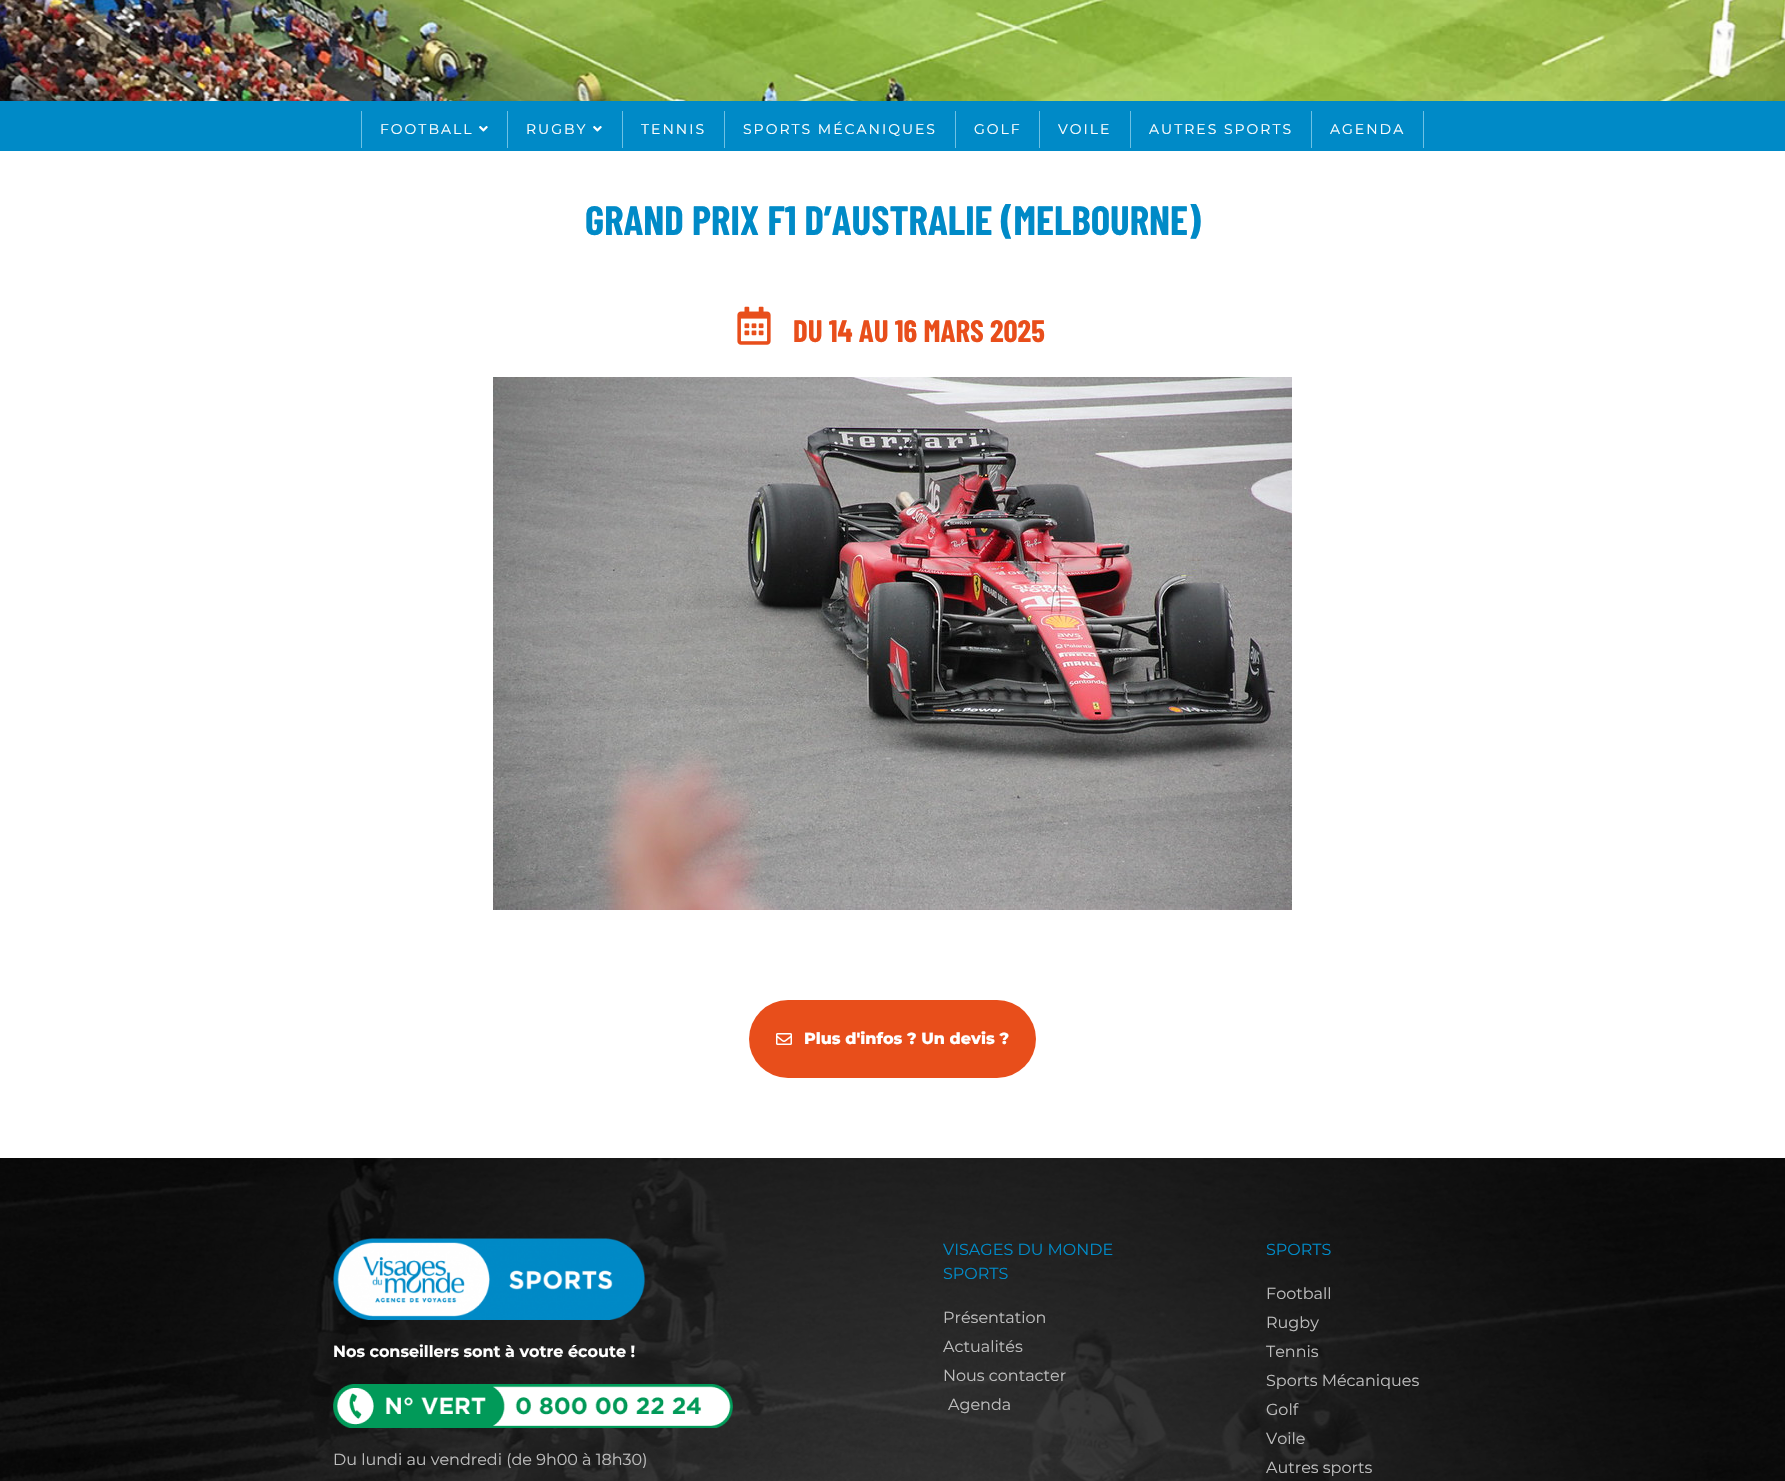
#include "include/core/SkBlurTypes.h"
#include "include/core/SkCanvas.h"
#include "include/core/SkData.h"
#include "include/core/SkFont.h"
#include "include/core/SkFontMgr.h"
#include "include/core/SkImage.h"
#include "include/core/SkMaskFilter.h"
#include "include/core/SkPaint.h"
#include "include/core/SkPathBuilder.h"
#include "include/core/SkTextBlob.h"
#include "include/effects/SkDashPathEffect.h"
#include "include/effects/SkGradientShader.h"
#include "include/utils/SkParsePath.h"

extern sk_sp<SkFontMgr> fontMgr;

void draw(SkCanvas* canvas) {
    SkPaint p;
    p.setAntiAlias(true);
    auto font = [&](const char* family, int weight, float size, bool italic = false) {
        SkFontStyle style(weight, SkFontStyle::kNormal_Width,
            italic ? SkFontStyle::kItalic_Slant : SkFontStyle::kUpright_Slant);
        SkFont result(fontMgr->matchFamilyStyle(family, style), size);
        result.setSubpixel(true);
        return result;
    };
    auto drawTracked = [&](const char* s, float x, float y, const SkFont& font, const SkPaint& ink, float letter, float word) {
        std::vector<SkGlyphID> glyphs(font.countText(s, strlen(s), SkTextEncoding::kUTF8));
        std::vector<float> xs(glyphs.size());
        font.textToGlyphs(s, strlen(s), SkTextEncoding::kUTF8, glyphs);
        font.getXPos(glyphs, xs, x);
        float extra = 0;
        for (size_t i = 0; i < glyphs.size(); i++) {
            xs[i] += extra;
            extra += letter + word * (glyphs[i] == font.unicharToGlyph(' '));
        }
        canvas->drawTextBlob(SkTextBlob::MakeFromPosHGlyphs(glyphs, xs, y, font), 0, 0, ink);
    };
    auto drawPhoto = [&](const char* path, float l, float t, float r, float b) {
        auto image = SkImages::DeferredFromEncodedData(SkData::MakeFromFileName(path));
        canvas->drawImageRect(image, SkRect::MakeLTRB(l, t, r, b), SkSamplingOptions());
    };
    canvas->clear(0xFFFFFFFF);
    drawPhoto("media/1.png", 0, 0, 1785, 101);
    p.setColor(0xFF008AC7);
    canvas->drawRect(SkRect::MakeLTRB(0, 101, 1785, 151), p);
    p.setColor(0xFF6EC1E4);
    canvas->drawRect(SkRect::MakeLTRB(361, 111, 362, 148), p);
    auto font1 = font("Montserrat", 400, 14);
    p.setColor(0xFFFFFFFF);
    drawTracked("FOOTBALL", 380, 134, font1, p, 2, 0);
    drawPhoto("media/2.png", 479, 126, 488, 132);
    p.setColor(0xFF6EC1E4);
    canvas->drawRect(SkRect::MakeLTRB(507, 111, 508, 148), p);
    p.setColor(0xFFFFFFFF);
    drawTracked("RUGBY", 526, 134, font1, p, 2, 0);
    drawPhoto("media/2.png", 593, 126, 602, 132);
    p.setColor(0xFF6EC1E4);
    canvas->drawRect(SkRect::MakeLTRB(622, 111, 623, 148), p);
    p.setColor(0xFFFFFFFF);
    drawTracked("TENNIS", 641, 134, font1, p, 2, 0);
    p.setColor(0xFF6EC1E4);
    canvas->drawRect(SkRect::MakeLTRB(724, 111, 725, 148), p);
    p.setColor(0xFFFFFFFF);
    drawTracked("SPORTS MÉCANIQUES", 743, 134, font1, p, 2, 0);
    p.setColor(0xFF6EC1E4);
    canvas->drawRect(SkRect::MakeLTRB(955, 111, 956, 148), p);
    p.setColor(0xFFFFFFFF);
    drawTracked("GOLF", 974, 134, font1, p, 2, 0);
    p.setColor(0xFF6EC1E4);
    canvas->drawRect(SkRect::MakeLTRB(1039, 111, 1040, 148), p);
    p.setColor(0xFFFFFFFF);
    drawTracked("VOILE", 1058, 134, font1, p, 2, 0);
    p.setColor(0xFF6EC1E4);
    canvas->drawRect(SkRect::MakeLTRB(1130, 111, 1131, 148), p);
    p.setColor(0xFFFFFFFF);
    drawTracked("AUTRES SPORTS", 1149, 134, font1, p, 2, 0);
    p.setColor(0xFF6EC1E4);
    canvas->drawRect(SkRect::MakeLTRB(1423, 111, 1424, 148), p);
    canvas->drawRect(SkRect::MakeLTRB(1311, 111, 1312, 148), p);
    p.setColor(0xFFFFFFFF);
    drawTracked("AGENDA", 1330, 134, font1, p, 2, 0);
    auto font2 = font("Barlow Condensed", 700, 41);
    p.setColor(0xFF008AC7);
    canvas->drawString("GRAND PRIX F1 D’AUSTRALIE (MELBOURNE)", 585, 235, font2, p);
    drawPhoto("media/3.png", 737, 306, 771, 345);
    auto font3 = font("Barlow Condensed", 700, 31);
    p.setColor(0xFFE84E1B);
    canvas->drawString("DU 14 AU 16 MARS 2025", 793, 342, font3, p);
    drawPhoto("media/4.png", 493, 377, 1292, 910);
    canvas->drawRoundRect(SkRect::MakeLTRB(749, 1000, 1036, 1078), 39, 39, p);
    drawPhoto("media/5.png", 776, 1033, 792, 1045);
    auto font4 = font("Montserrat", 800, 16);
    p.setColor(0xFFFFFFFF);
    canvas->drawString("Plus d'infos ? Un devis ?", 804, 1044, font4, p);
    drawPhoto("media/6.png", 0, 1158, 1785, 1481);
    drawPhoto("media/7.png", 333, 1238, 645, 1320);
    auto font5 = font("Montserrat", 700, 16);
    canvas->drawString("Nos conseillers sont à votre écoute !", 333, 1357, font5, p);
    drawPhoto("media/8.png", 333, 1384, 733, 1428);
    auto font6 = font("Montserrat", 400, 16);
    p.setColor(0xFFBDBDBD);
    canvas->drawString("Du lundi au vendredi (de 9h00 à 18h30)", 333, 1465, font6, p);
    p.setColor(0xFF008AC7);
    canvas->drawString("VISAGES DU MONDE", 943, 1255, font6, p);
    canvas->drawString("SPORTS", 943, 1279, font6, p);
    p.setColor(0xFFBDBDBD);
    {
        const struct { const char* s; float x, y; } items[] = {
            {"Présentation", 943, 1323},
            {"Actualités", 943, 1352},
            {"Nous contacter", 943, 1381},
            {"Agenda", 948, 1410},
        };
        for (auto [s, x, y] : items) {
            canvas->drawString(s, x, y, font6, p);
        }
    }
    p.setColor(0xFF008AC7);
    canvas->drawString("SPORTS", 1266, 1255, font6, p);
    p.setColor(0xFFBDBDBD);
    {
        const struct { const char* s; float x, y; } items[] = {
            {"Football", 1266, 1299},
            {"Rugby", 1266, 1328},
            {"Tennis", 1266, 1357},
            {"Sports Mécaniques", 1266, 1386},
            {"Golf", 1266, 1415},
            {"Voile", 1266, 1444},
            {"Autres sports", 1266, 1473},
        };
        for (auto [s, x, y] : items) {
            canvas->drawString(s, x, y, font6, p);
        }
    }
}
